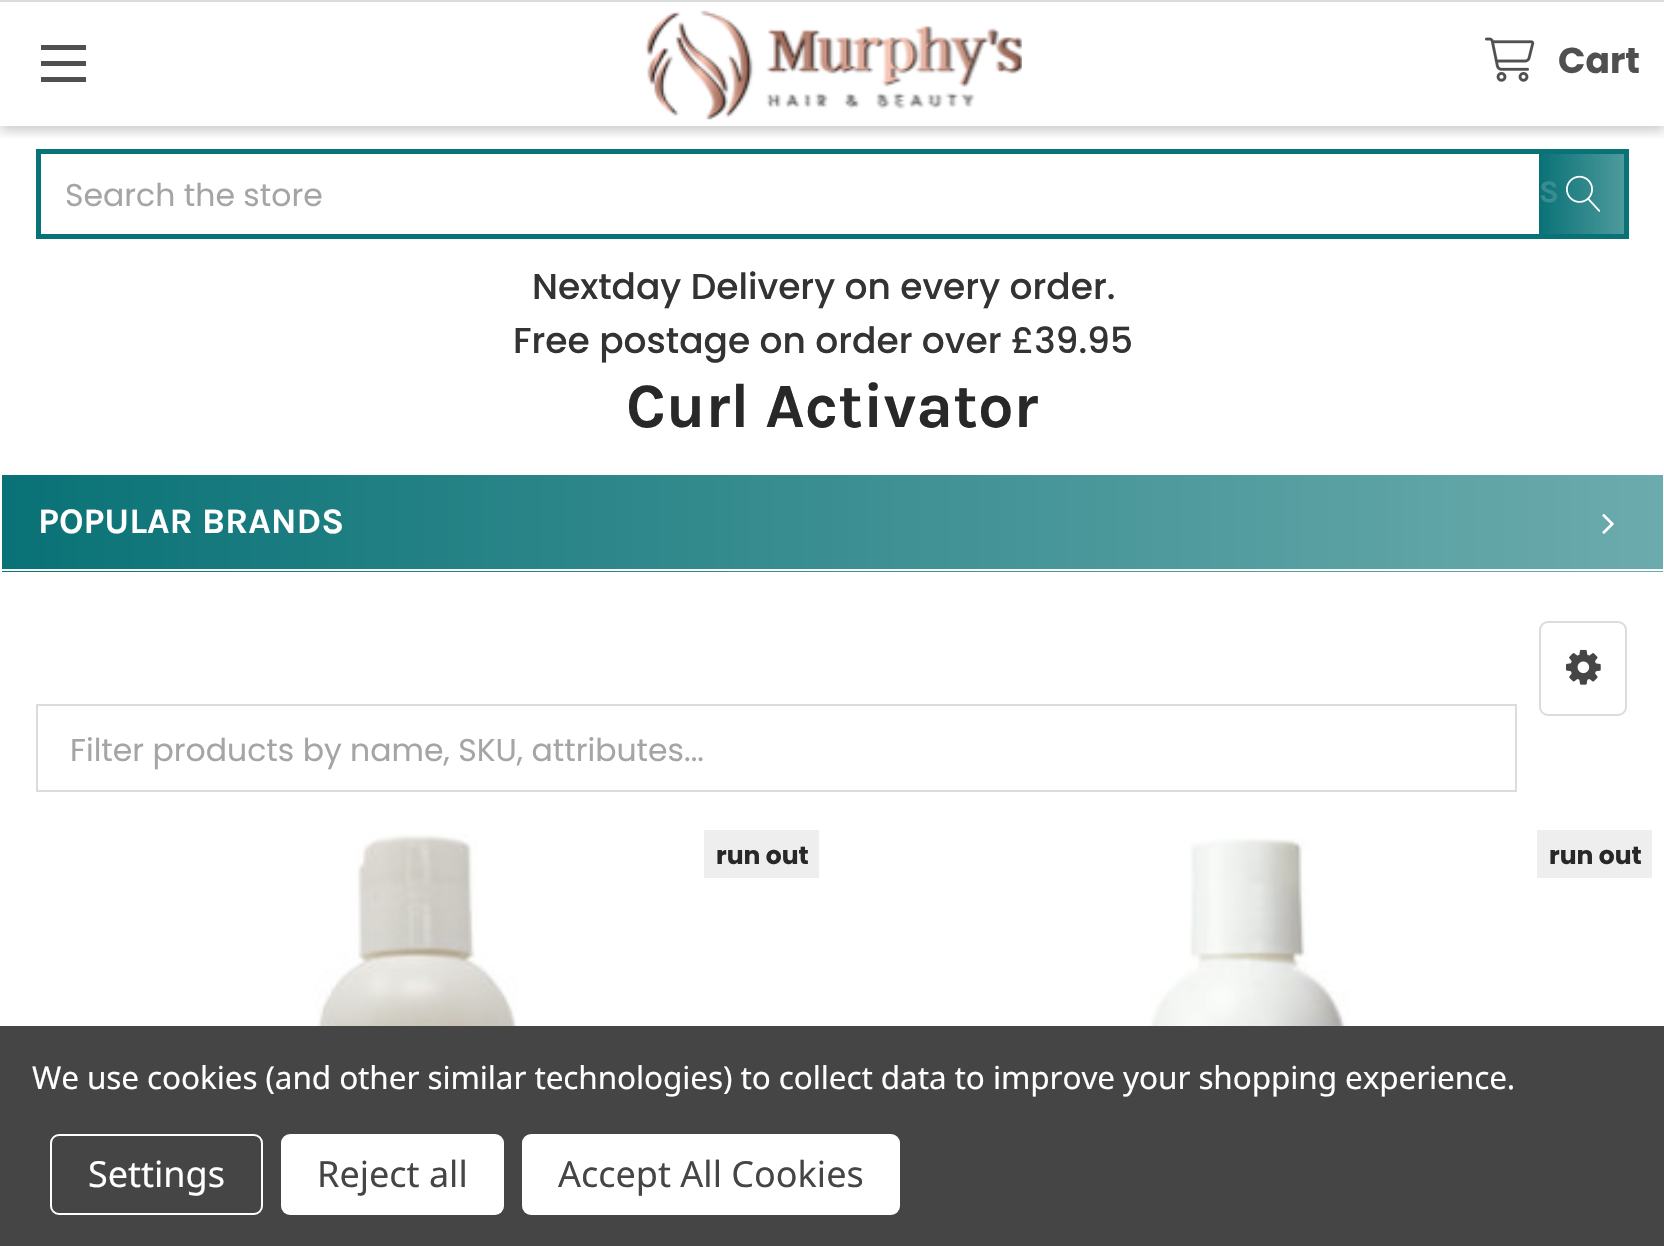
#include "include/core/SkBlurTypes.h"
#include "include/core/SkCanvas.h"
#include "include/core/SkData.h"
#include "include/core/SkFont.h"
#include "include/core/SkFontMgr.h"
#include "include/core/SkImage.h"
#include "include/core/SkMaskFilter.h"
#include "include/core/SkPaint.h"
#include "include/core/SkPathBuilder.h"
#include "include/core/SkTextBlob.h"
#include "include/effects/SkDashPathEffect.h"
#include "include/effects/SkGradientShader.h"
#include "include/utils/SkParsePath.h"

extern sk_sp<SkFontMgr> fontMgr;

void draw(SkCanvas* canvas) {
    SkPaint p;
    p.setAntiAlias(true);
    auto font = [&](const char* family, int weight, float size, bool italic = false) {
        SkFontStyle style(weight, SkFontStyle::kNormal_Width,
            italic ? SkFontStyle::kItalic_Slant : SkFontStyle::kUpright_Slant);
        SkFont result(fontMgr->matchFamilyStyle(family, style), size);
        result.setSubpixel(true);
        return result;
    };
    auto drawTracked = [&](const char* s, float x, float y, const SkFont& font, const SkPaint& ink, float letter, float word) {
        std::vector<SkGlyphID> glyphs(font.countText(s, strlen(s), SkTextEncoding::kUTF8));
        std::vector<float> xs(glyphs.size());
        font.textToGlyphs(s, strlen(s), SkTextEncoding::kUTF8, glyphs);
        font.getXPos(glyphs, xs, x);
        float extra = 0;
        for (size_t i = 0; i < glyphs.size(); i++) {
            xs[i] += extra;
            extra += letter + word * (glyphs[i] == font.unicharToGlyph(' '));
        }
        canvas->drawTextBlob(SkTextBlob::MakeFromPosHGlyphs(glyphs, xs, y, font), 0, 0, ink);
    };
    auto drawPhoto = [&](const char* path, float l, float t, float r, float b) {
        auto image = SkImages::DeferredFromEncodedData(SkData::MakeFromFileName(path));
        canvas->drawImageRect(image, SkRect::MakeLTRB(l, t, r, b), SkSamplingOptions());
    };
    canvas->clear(0xFFFFFFFF);
    canvas->save();
    canvas->clipRect(SkRect::MakeLTRB(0, 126, 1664, 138));
    p.setColor(0x33000000);
    p.setMaskFilter(SkMaskFilter::MakeBlur(kNormal_SkBlurStyle, 5.5f));
    canvas->drawRect(SkRect::MakeLTRB(0, 5, 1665, 131), p);
    p.setMaskFilter(nullptr);
    canvas->restore();
    {
        const struct { float l, t, r, b; SkColor color; } items[] = {
            {0, 0, 1664, 2, 0xFFDCDCDC},
            {41, 61, 86, 66, 0xFF505050},
            {41, 45, 86, 50, 0xFF505050},
            {41, 77, 86, 82, 0xFF505050},
        };
        for (auto [l, t, r, b, color] : items) {
            p.setColor(color);
            canvas->drawRect(SkRect::MakeLTRB(l, t, r, b), p);
        }
    }
    drawPhoto("media/1.png", 645, 10, 1022, 120);
    drawPhoto("media/2.png", 1485, 37, 1535, 82);
    auto font1 = font("Poppins", 700, 36);
    canvas->drawString("Cart", 1558, 73, font1, p);
    p.setStyle(SkPaint::kStroke_Style);
    p.setStrokeWidth(5);
    p.setColor(0xFF097276);
    canvas->drawRect(SkRect::MakeLTRB(38.5f, 151.5f, 1626.5f, 236.5f), p);
    auto font2 = font("Poppins", 400, 31.5f);
    p.setStyle(SkPaint::kFill_Style);
    p.setColor(0xFFA5A5A5);
    canvas->drawString("Search the store", 65, 206, font2, p);
    {
        const SkColor colors[] = {0xFF097276, 0xB3097276};
        const float stops[] = {0, 1};
        const SkPoint ends[] = {{1539, 194}, {1629, 194}};
        p.setShader(SkGradientShader::MakeLinear(ends, colors, stops, 2, SkTileMode::kClamp));
        p.setAlpha(255);
    }
    canvas->drawRect(SkRect::MakeLTRB(1539, 154, 1624, 234), p);
    auto font3 = font("Karla", 700, 31.5f);
    p.setShader(nullptr);
    p.setColor(0xFF388D90);
    canvas->drawString("S", 1539, 202, font3, p);
    drawPhoto("media/3.png", 1566, 175, 1601, 212);
    auto font4 = font("Poppins", 500, 36);
    p.setColor(0xFF333333);
    canvas->drawString("Nextday Delivery on every order.", 532, 299, font4, p);
    canvas->drawString("Free postage on order over £39.95", 513, 353, font4, p);
    auto font5 = font("Karla", 700, 63);
    p.setColor(0xFF282828);
    canvas->drawString("Curl Activator", 626, 427, font5, p);
    {
        const SkColor colors[] = {0xFF097276, 0xFF6CABAD};
        const float stops[] = {0, 1};
        const SkPoint ends[] = {{2.2f, 522}, {1663, 522}};
        p.setShader(SkGradientShader::MakeLinear(ends, colors, stops, 2, SkTileMode::kClamp));
        p.setAlpha(255);
    }
    canvas->drawRect(SkRect::MakeLTRB(2, 475, 1663, 572), p);
    p.setShader(nullptr);
    p.setColor(0xFFFFFFFF);
    canvas->drawRect(SkRect::MakeLTRB(2, 569, 1663, 571), p);
    auto font6 = font("Karla", 700, 36);
    canvas->drawString("POPULAR BRANDS", 38, 533, font6, p);
    drawPhoto("media/4.png", 1602, 514, 1614, 534);
    p.setStyle(SkPaint::kStroke_Style);
    p.setStrokeWidth(2);
    p.setColor(0xFFDCDCDC);
    canvas->drawRoundRect(SkRect::MakeLTRB(1540, 622, 1626, 715), 8, 8, p);
    drawPhoto("media/5.png", 1566, 649, 1601, 685);
    canvas->drawRect(SkRect::MakeLTRB(37, 705, 1516, 791), p);
    p.setStyle(SkPaint::kFill_Style);
    p.setColor(0xFFA5A5A5);
    canvas->drawString("Filter products by name, SKU, attributes...", 70, 761, font2, p);
    drawPhoto("media/6.png", 315, 834, 520, 1026);
    p.setColor(0xFFEEEEEE);
    canvas->drawRect(SkRect::MakeLTRB(704, 830, 819, 878), p);
    auto font7 = font("Poppins", 700, 25);
    p.setColor(0xFF282828);
    canvas->drawString("run out", 716, 864, font7, p);
    drawPhoto("media/7.png", 1145, 838, 1350, 1026);
    p.setColor(0xFFEEEEEE);
    canvas->drawRect(SkRect::MakeLTRB(1537, 830, 1652, 878), p);
    p.setColor(0xFF282828);
    canvas->drawString("run out", 1549, 864, font7, p);
    p.setColor(0xFF454545);
    canvas->drawRect(SkRect::MakeLTRB(0, 1026, 1664, 1246), p);
    auto font8 = font("Noto Sans", 400, 31.5f);
    p.setColor(0xFFFFFFFF);
    drawTracked("We use cookies (and other similar technologies) to collect data to improve your shopping experience.", 32, 1089, font8, p, -0.1f, 0);
    p.setStyle(SkPaint::kStroke_Style);
    canvas->drawRoundRect(SkRect::MakeLTRB(51, 1135, 262, 1214), 8, 8, p);
    auto font9 = font("Noto Sans", 400, 36);
    p.setStyle(SkPaint::kFill_Style);
    canvas->drawString("Settings", 88, 1187, font9, p);
    canvas->drawRoundRect(SkRect::MakeLTRB(281, 1134, 504, 1215), 9, 9, p);
    p.setColor(0xFF454545);
    canvas->drawString("Reject all", 317, 1187, font9, p);
    p.setColor(0xFFFFFFFF);
    canvas->drawRoundRect(SkRect::MakeLTRB(522, 1134, 900, 1215), 9, 9, p);
    p.setColor(0xFF454545);
    canvas->drawString("Accept All Cookies", 558, 1187, font9, p);
}
